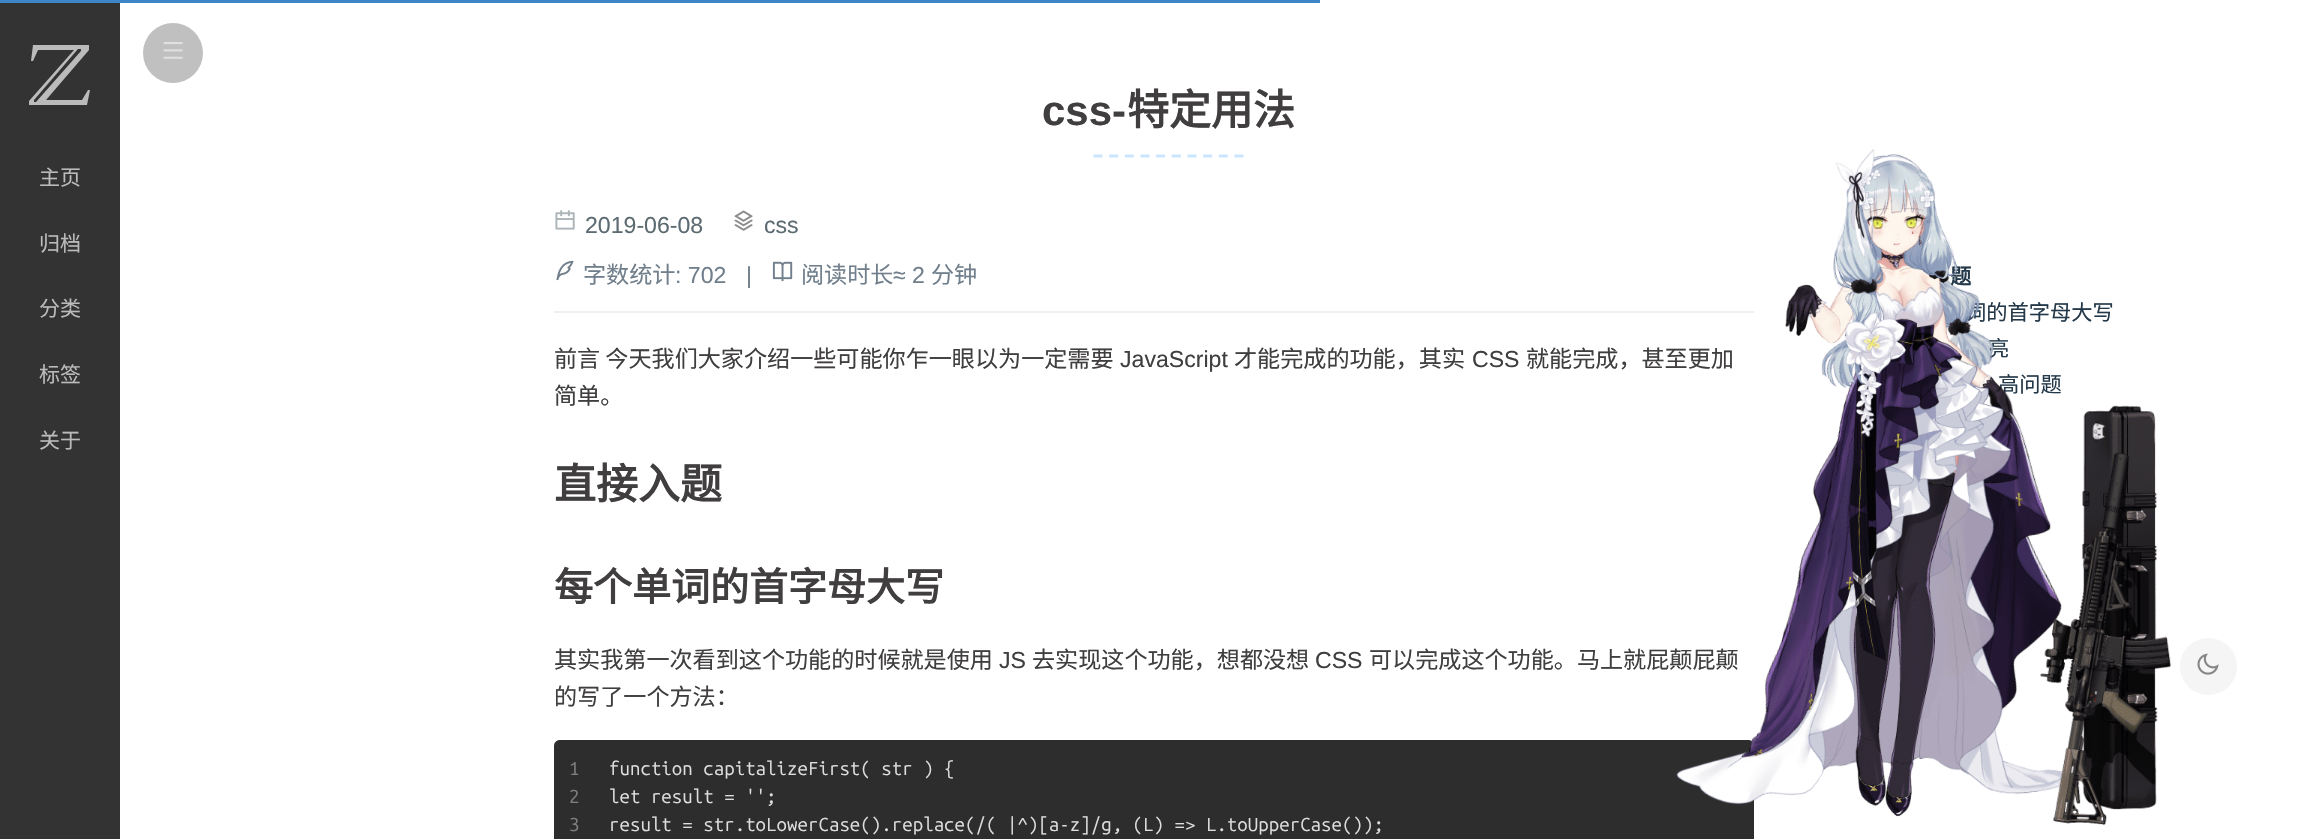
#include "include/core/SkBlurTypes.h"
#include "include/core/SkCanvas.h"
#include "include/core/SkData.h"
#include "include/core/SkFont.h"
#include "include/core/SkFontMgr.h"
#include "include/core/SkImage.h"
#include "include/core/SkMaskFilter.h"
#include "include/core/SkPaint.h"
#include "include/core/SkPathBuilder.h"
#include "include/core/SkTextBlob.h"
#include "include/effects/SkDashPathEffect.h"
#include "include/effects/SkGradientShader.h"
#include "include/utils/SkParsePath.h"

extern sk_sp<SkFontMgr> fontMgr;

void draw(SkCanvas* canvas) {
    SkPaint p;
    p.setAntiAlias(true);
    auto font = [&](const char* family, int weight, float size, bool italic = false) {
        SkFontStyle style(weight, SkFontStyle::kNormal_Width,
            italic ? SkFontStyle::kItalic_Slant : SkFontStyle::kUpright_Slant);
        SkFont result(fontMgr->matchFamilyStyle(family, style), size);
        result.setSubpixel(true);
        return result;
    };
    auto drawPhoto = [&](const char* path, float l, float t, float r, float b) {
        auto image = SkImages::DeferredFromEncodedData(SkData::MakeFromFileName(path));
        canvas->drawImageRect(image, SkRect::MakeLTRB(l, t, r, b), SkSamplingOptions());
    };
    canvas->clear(0xFFFFFFFF);
    p.setColor(0xFF3D85C6);
    canvas->drawRect(SkRect::MakeLTRB(0, 0, 1320, 3), p);
    p.setColor(0xFF333333);
    canvas->drawRect(SkRect::MakeLTRB(0, 3, 120, 839), p);
    p.setColor(0xFFC0C0C0);
    canvas->drawCircle(173, 53, 30, p);
    drawPhoto("media/1.png", 163, 42, 183, 59);
    p.setColor(0xFFBBBBBB);
    canvas->drawPath(SkPathBuilder(SkPathFillType::kEvenOdd).moveTo(89, 45).lineTo(89, 50).lineTo(46, 100).lineTo(82, 100).lineTo(88, 90).lineTo(90, 90).lineTo(87, 105).lineTo(29, 105).lineTo(29, 101).lineTo(74, 50).lineTo(38, 50).lineTo(33, 61).lineTo(31, 61).lineTo(33, 45).close().moveTo(81, 49).lineTo(78, 49).lineTo(34, 100).lineTo(34, 102).lineTo(36, 102).lineTo(81, 51).close().detach(), p);
    auto font1 = font("Noto Sans CJK SC", 400, 21);
    {
        const struct { const char* s; float x, y; } items[] = {
            {"主页", 39, 185},
            {"归档", 39, 251},
            {"分类", 39, 316},
            {"标签", 39, 382},
            {"关于", 39, 448},
        };
        for (auto [s, x, y] : items) {
            canvas->drawString(s, x, y, font1, p);
        }
    }
    auto font2 = font("Liberation Sans", 700, 42);
    p.setColor(0xFF403E3E);
    canvas->drawString("css-", 1042, 125, font2, p);
    auto font3 = font("Noto Sans CJK SC", 700, 42);
    canvas->drawString("特定用法", 1127, 125, font3, p);
    p.setStyle(SkPaint::kStroke_Style);
    p.setStrokeWidth(3);
    p.setColor(0xFFCCE5FF);
    p.setPathEffect(SkDashPathEffect::Make({{9, 6.66f}}, 0));
    canvas->drawPath(SkPathBuilder().moveTo(1093.5f, 156).lineTo(1243.5f, 156).detach(), p);
    p.setPathEffect(nullptr);
    drawPhoto("media/2.png", 555, 210, 575, 230);
    auto font4 = font("Liberation Sans", 400, 23.1f);
    p.setStyle(SkPaint::kFill_Style);
    p.setColor(0xFF5C6B72);
    canvas->drawString("2019-06-08", 585, 233, font4, p);
    drawPhoto("media/3.png", 734, 210, 753, 231);
    canvas->drawString("css", 764, 233, font4, p);
    p.setColor(0xFFEFEFEF);
    canvas->drawRect(SkRect::MakeLTRB(554, 311, 1754, 313), p);
    drawPhoto("media/4.png", 556, 260, 574, 281);
    auto font5 = font("Noto Sans CJK SC", 400, 23.1f);
    p.setColor(0xFF717F8C);
    canvas->drawString("字数统计", 583, 283, font5, p);
    canvas->drawString(": 702", 675, 283, font4, p);
    canvas->drawString("|", 746, 283, font4, p);
    drawPhoto("media/5.png", 772, 261, 793, 282);
    canvas->drawString("阅读时长", 801, 283, font5, p);
    canvas->drawString("≈ 2", 893, 283, font4, p);
    canvas->drawString("分钟", 931, 283, font5, p);
    auto font6 = font("Noto Sans CJK SC", 700, 21.25f);
    p.setColor(0xFF233848);
    canvas->drawString("题", 1950, 284, font6, p);
    auto font7 = font("Noto Sans CJK SC", 400, 21.25f);
    {
        const struct { const char* s; float x, y; } items[] = {
            {"词的首字母大写", 1965, 320},
            {"亮", 1988, 356},
            {"高问题", 1998, 392},
        };
        for (auto [s, x, y] : items) {
            canvas->drawString(s, x, y, font7, p);
        }
    }
    p.setColor(0xFF403E3E);
    canvas->drawString("前言 今天我们大家介绍一些可能你乍一眼以为一定需要", 554, 367, font5, p);
    canvas->drawString("JavaScript", 1120, 367, font4, p);
    canvas->drawString("才能完成的功能，其实", 1234, 367, font5, p);
    canvas->drawString("CSS", 1472, 367, font4, p);
    canvas->drawString("就能完成，甚至更加", 1526, 367, font5, p);
    canvas->drawString("简单。", 554, 404, font5, p);
    canvas->drawString("直接入题", 554, 499, font3, p);
    auto font8 = font("Noto Sans CJK SC", 700, 39);
    canvas->drawString("每个单词的首字母大写", 554, 601, font8, p);
    canvas->drawString("其实我第一次看到这个功能的时候就是使用", 554, 668, font5, p);
    canvas->drawString("JS", 999, 668, font4, p);
    canvas->drawString("去实现这个功能，想都没想", 1032, 668, font5, p);
    canvas->drawString("CSS", 1315, 668, font4, p);
    canvas->drawString("可以完成这个功能。马上就屁颠屁颠", 1369, 668, font5, p);
    canvas->drawString("的写了一个方法：", 554, 705, font5, p);
    p.setColor(0xFF2D2D2D);
    canvas->drawPath(SkPathBuilder().moveTo(560, 740).lineTo(1748, 740).cubicTo(1751.5f, 740, 1754, 742.5f, 1754, 746).lineTo(1754, 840).lineTo(554, 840).lineTo(554, 746).cubicTo(554, 742.5f, 556.5f, 740, 560, 740).close().detach(), p);
    auto font9 = font("Ubuntu Mono", 400, 18.7f);
    p.setColor(0xFF808080);
    {
        const struct { const char* s; float x, y; } items[] = {
            {"1", 569, 775},
            {"2", 569, 803},
            {"3", 569, 831},
        };
        for (auto [s, x, y] : items) {
            canvas->drawString(s, x, y, font9, p);
        }
    }
    p.setColor(0xFFDEDEDE);
    {
        const struct { const char* s; float x, y; } items[] = {
            {"function capitalizeFirst( str ) {", 609, 775},
            {"let result = '';", 609, 803},
            {"result = str.toLowerCase().replace(/( |^)[a-z]/g, (L) => L.toUpperCase());", 609, 831},
        };
        for (auto [s, x, y] : items) {
            canvas->drawString(s, x, y, font9, p);
        }
    }
    p.setColor(0xFFF5F5F5);
    canvas->drawCircle(2208.5f, 666.5f, 28.5f, p);
    drawPhoto("media/6.png", 2197, 653, 2219, 675);
    drawPhoto("media/7.png", 1676, 149, 2172, 825);
}
